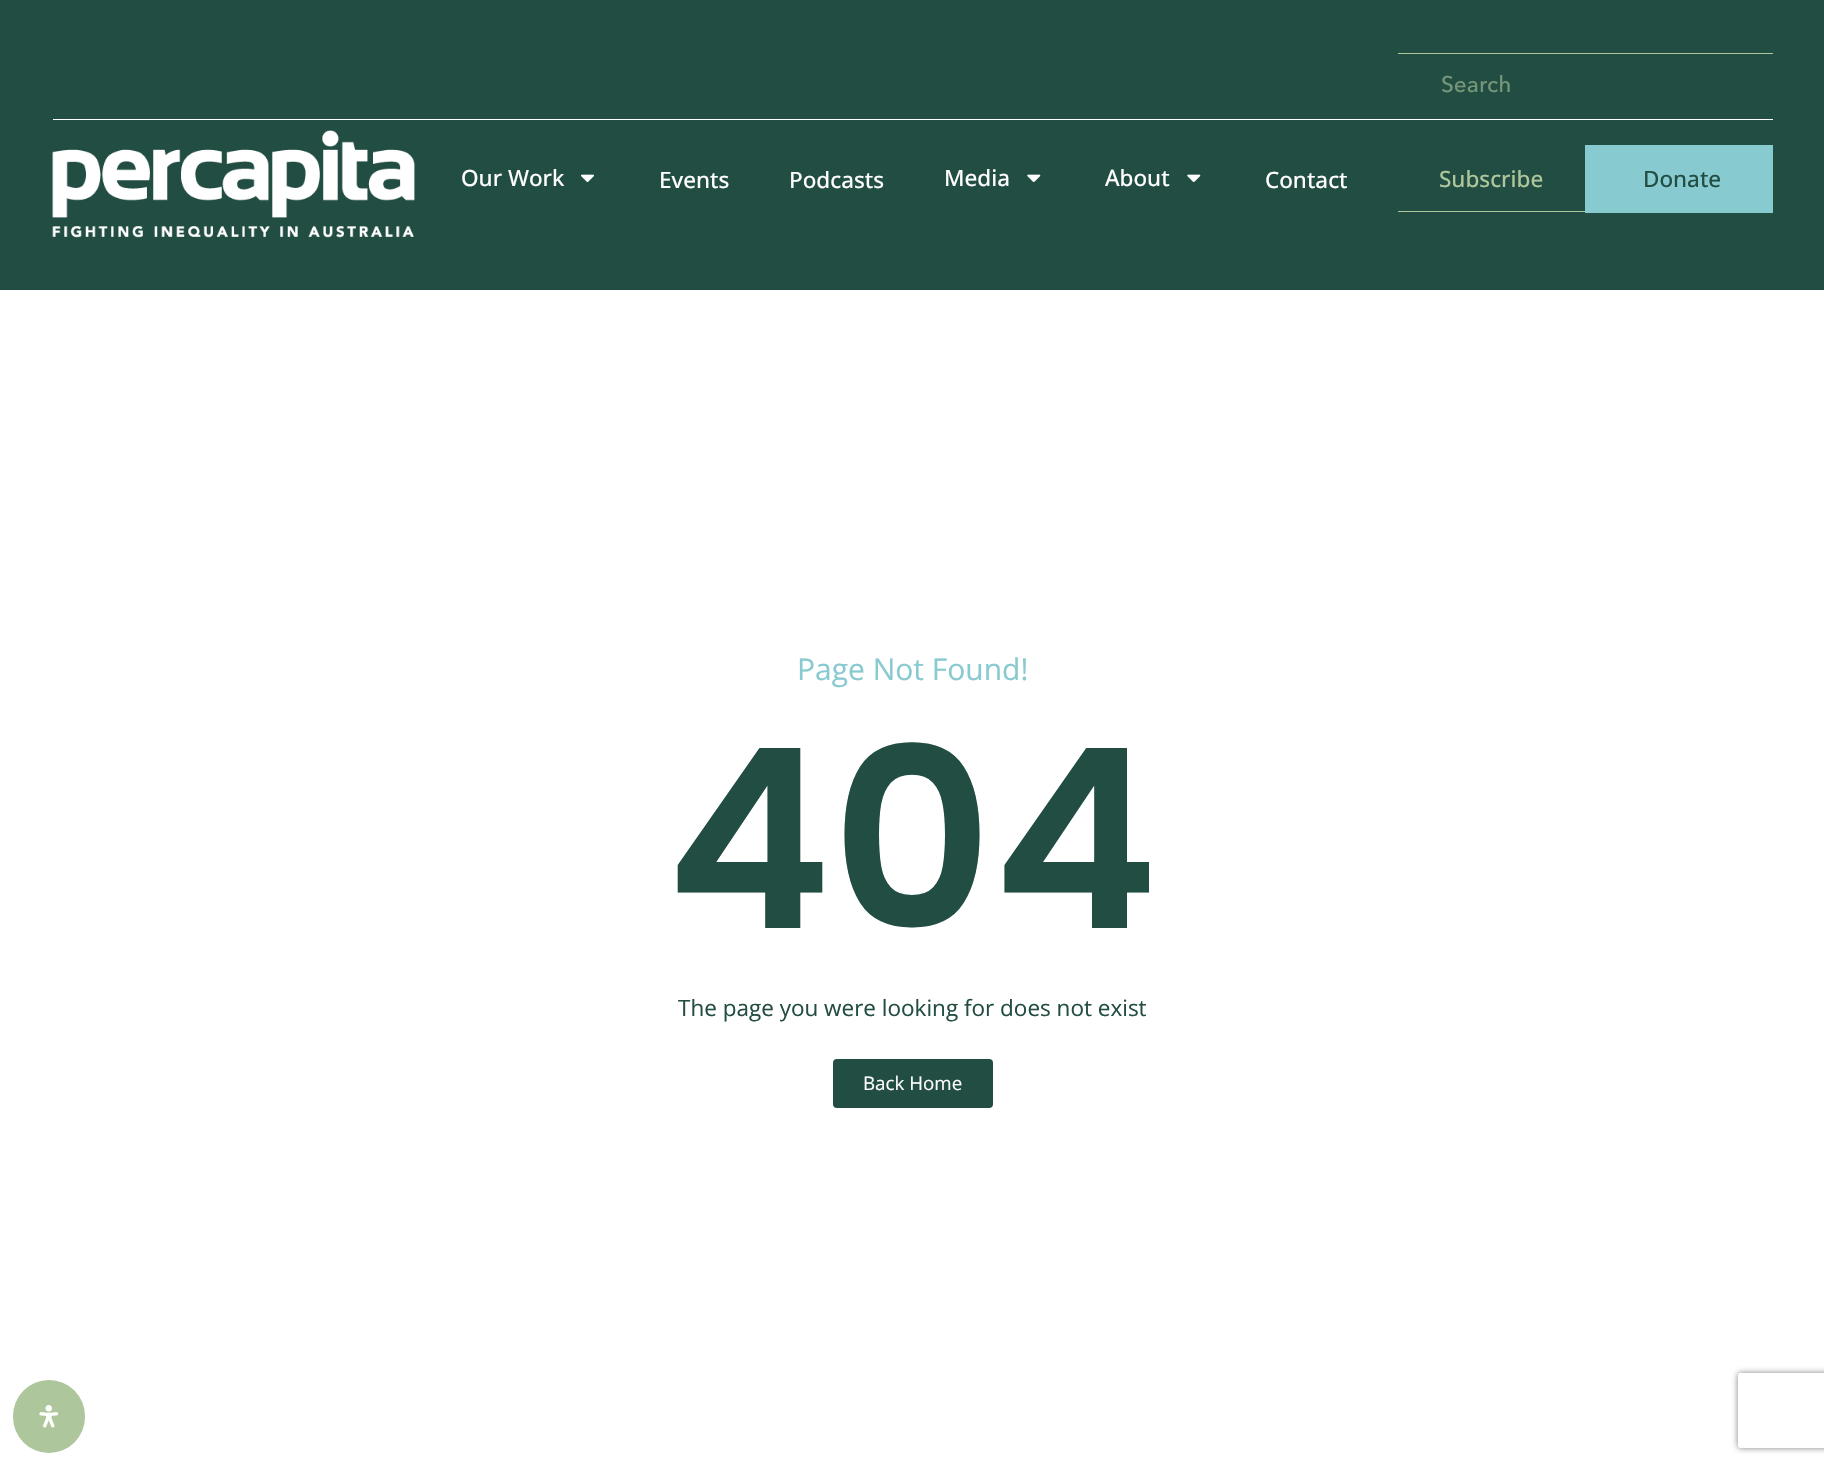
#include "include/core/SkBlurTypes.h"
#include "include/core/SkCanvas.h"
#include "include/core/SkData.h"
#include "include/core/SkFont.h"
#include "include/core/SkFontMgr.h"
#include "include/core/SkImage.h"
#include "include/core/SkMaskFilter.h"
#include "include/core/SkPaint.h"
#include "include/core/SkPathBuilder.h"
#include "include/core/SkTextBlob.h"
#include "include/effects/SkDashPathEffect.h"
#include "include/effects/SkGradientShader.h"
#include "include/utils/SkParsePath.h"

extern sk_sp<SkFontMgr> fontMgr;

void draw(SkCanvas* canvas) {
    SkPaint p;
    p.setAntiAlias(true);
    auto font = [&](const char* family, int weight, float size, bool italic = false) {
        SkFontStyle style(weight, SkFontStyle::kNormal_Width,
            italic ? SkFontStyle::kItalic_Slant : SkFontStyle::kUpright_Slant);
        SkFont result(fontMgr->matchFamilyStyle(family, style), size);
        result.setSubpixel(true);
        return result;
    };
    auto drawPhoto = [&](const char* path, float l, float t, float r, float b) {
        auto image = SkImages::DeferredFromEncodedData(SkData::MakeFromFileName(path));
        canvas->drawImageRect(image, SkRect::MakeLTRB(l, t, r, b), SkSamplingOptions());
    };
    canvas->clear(0xFFFFFFFF);
    p.setColor(0xFF224D43);
    canvas->drawRect(SkRect::MakeLTRB(0, 0, 1824, 290), p);
    p.setColor(0xFFADC69B);
    canvas->drawRect(SkRect::MakeLTRB(1398, 53, 1773, 54), p);
    auto font1 = font("Avenir Next", 500, 22.5f);
    p.setColor(0xFF759678);
    canvas->drawString("Search", 1441, 92, font1, p);
    p.setColor(0xFFFFFFFF);
    canvas->drawRect(SkRect::MakeLTRB(53, 119, 1773, 120), p);
    drawPhoto("media/1.png", 52, 130, 415, 238);
    auto font2 = font("Open Sans", 500, 22.5f);
    canvas->drawString("Our Work", 461, 186, font2, p);
    drawPhoto("media/2.png", 581, 174, 594, 182);
    {
        const struct { const char* s; float x, y; } items[] = {
            {"Events", 659, 188},
            {"Podcasts", 789, 188},
            {"Media", 944, 186},
        };
        for (auto [s, x, y] : items) {
            canvas->drawString(s, x, y, font2, p);
        }
    }
    drawPhoto("media/3.png", 1027, 174, 1041, 182);
    canvas->drawString("About", 1105, 186, font2, p);
    drawPhoto("media/3.png", 1187, 174, 1201, 182);
    canvas->drawString("Contact", 1265, 188, font2, p);
    p.setColor(0xFFADC69B);
    canvas->drawRect(SkRect::MakeLTRB(1398, 211, 1585, 212), p);
    canvas->drawString("Subscribe", 1439, 187, font2, p);
    p.setColor(0xFF87CAD0);
    canvas->drawRect(SkRect::MakeLTRB(1585, 145, 1773, 213), p);
    p.setColor(0xFF224D43);
    canvas->drawString("Donate", 1643, 187, font2, p);
    auto font3 = font("Open Sans", 400, 30);
    p.setColor(0xFF87CAD0);
    canvas->drawString("Page Not Found!", 797, 680, font3, p);
    auto font4 = font("Poppins", 600, 250);
    p.setColor(0xFF224D43);
    canvas->drawString("404", 666, 928, font4, p);
    auto font5 = font("Open Sans", 400, 22.5f);
    canvas->drawString("The page you were looking for does not exist", 678, 1016, font5, p);
    canvas->drawRoundRect(SkRect::MakeLTRB(833, 1059, 993, 1108), 4, 4, p);
    auto font6 = font("Open Sans", 400, 18.75f);
    p.setColor(0xFFFFFFFF);
    canvas->drawString("Back Home", 863, 1090, font6, p);
    p.setColor(0xFFADC69B);
    canvas->drawRoundRect(SkRect::MakeLTRB(13, 1380, 85, 1453), 36, 36, p);
    drawPhoto("media/4.png", 39, 1405, 59, 1428);
    canvas->save();
    canvas->clipPath(SkPathBuilder(SkPathFillType::kEvenOdd).moveTo(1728, 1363).lineTo(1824, 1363).lineTo(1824, 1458).lineTo(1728, 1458).close().moveTo(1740.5f, 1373).lineTo(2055.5f, 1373).cubicTo(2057, 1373, 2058, 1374, 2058, 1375.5f).lineTo(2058, 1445.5f).cubicTo(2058, 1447, 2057, 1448, 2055.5f, 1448).lineTo(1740.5f, 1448).cubicTo(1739, 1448, 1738, 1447, 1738, 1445.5f).lineTo(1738, 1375.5f).cubicTo(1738, 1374, 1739, 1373, 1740.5f, 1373).close().detach(), true);
    p.setColor(0xFF808080);
    p.setMaskFilter(SkMaskFilter::MakeBlur(kNormal_SkBlurStyle, 3));
    canvas->drawRoundRect(SkRect::MakeLTRB(1738, 1373, 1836, 1448), 2.5f, 2.5f, p);
    p.setMaskFilter(nullptr);
    canvas->restore();
}
